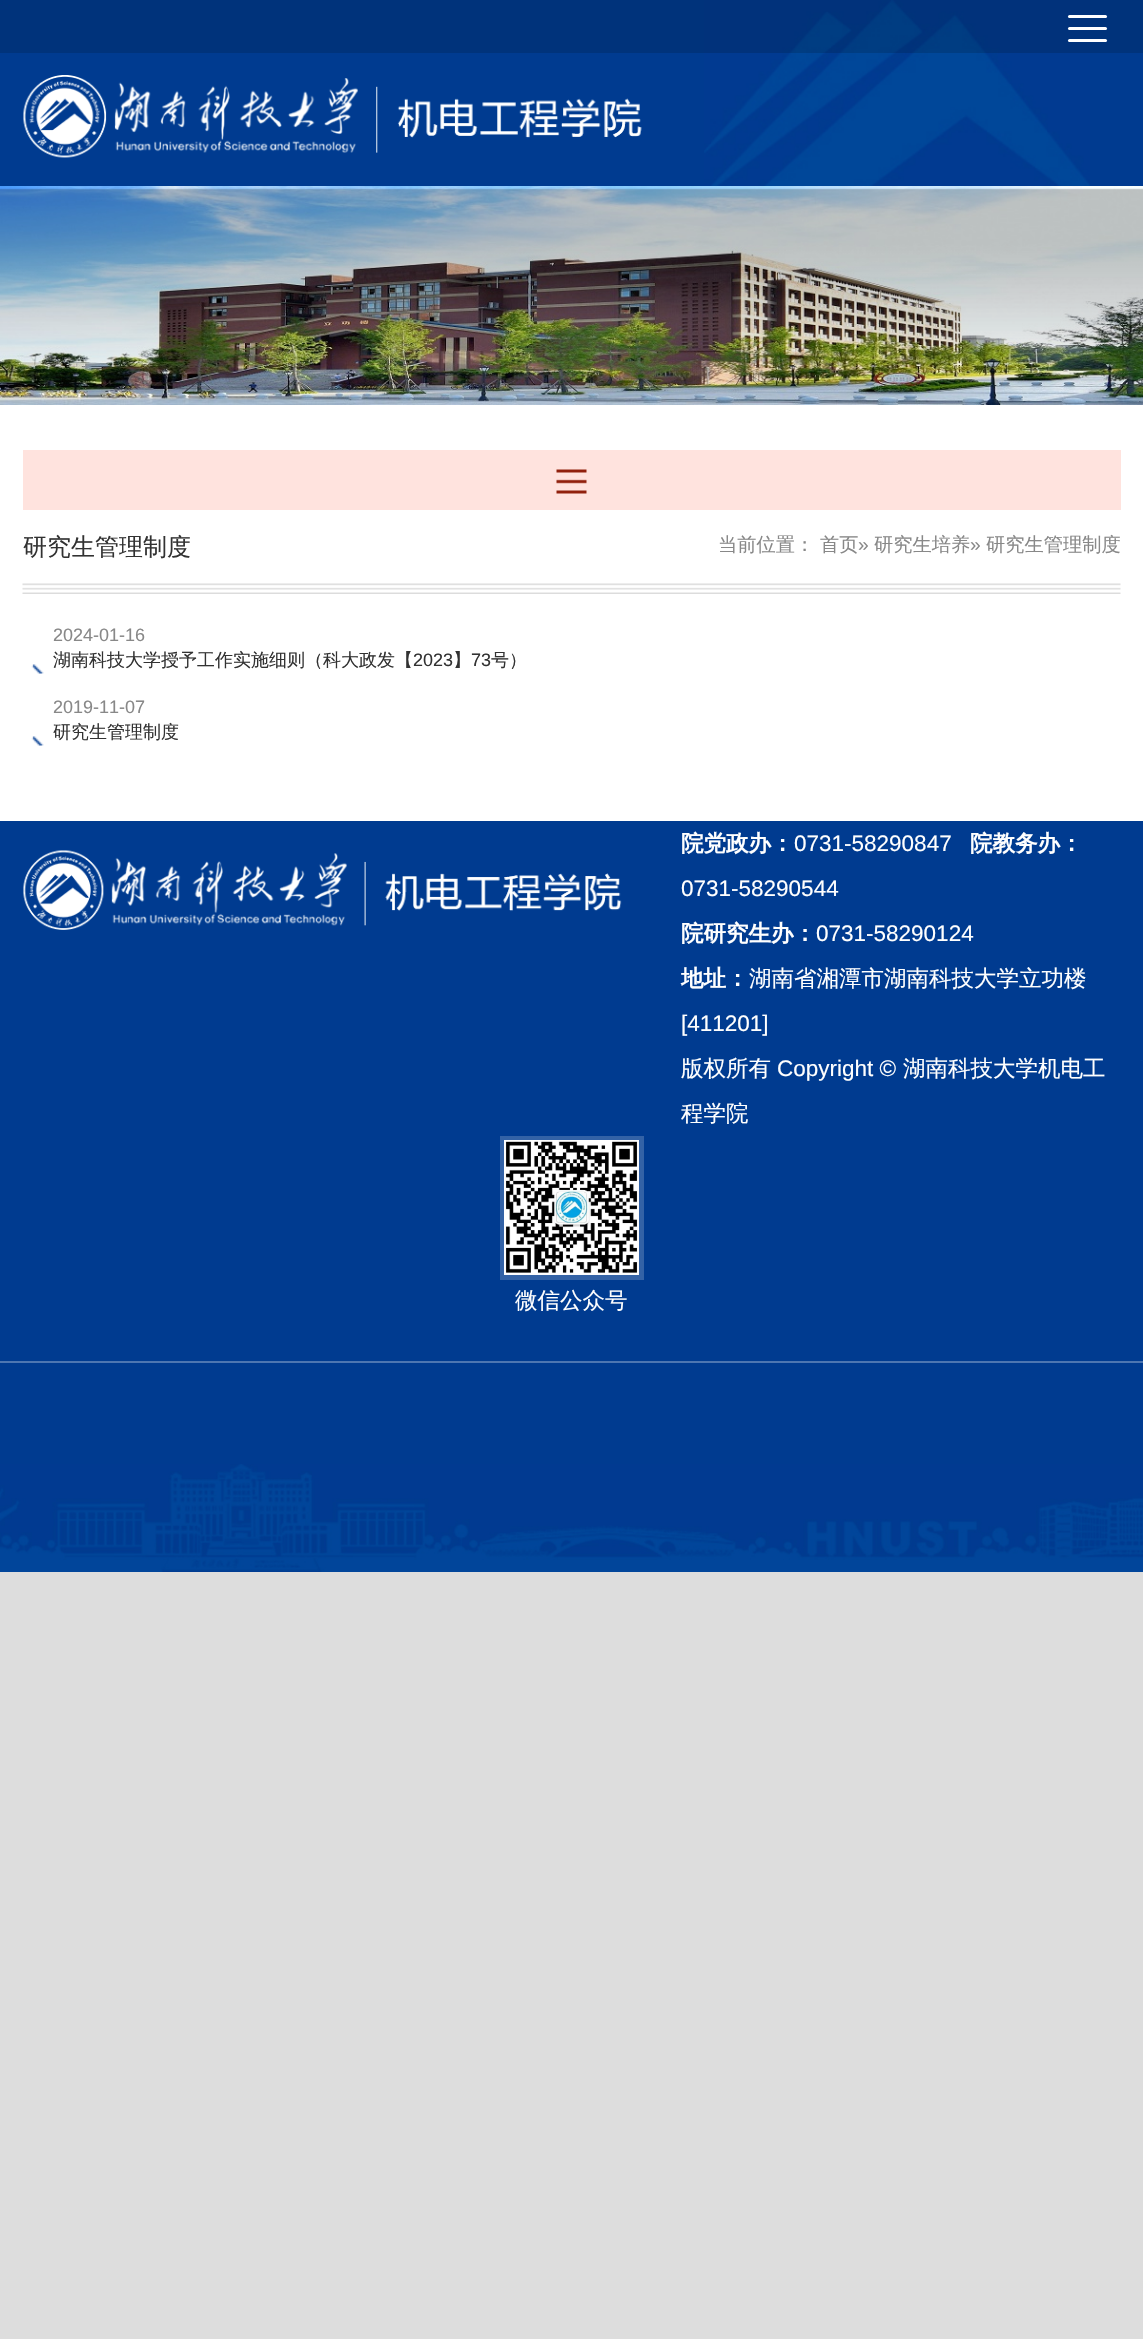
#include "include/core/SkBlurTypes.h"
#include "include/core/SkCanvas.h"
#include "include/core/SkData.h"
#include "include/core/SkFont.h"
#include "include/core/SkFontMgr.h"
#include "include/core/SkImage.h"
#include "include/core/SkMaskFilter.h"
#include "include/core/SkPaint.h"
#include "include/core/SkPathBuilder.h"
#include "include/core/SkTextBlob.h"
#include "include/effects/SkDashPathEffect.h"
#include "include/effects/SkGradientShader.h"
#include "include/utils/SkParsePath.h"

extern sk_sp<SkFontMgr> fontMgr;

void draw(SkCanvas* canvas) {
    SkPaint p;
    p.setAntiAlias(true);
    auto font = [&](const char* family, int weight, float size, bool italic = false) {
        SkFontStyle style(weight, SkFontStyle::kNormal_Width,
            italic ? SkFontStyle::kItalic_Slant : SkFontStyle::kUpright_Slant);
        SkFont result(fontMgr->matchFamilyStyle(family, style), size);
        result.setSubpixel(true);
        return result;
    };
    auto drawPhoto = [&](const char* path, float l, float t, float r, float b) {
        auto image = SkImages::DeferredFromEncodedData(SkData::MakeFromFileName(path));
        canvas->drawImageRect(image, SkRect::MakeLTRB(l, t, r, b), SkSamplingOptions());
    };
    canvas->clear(0xFFDDDDDD);
    p.setColor(0xFFFFFFFF);
    canvas->drawRect(SkRect::MakeLTRB(0, 405, 1143, 821), p);
    p.setColor(0xFF003B90);
    canvas->drawRect(SkRect::MakeLTRB(0, 0, 1143, 186), p);
    drawPhoto("media/1.png", 704, 0, 1090, 186);
    p.setColor(0x26000000);
    canvas->drawRect(SkRect::MakeLTRB(0, 0, 1143, 53), p);
    p.setColor(0xFFFFFFFF);
    canvas->drawRoundRect(SkRect::MakeLTRB(1068, 15, 1107, 18), 1.5f, 1.5f, p);
    canvas->drawRoundRect(SkRect::MakeLTRB(1068, 27, 1107, 30), 1.5f, 1.5f, p);
    canvas->drawRoundRect(SkRect::MakeLTRB(1068, 39, 1107, 42), 1.5f, 1.5f, p);
    drawPhoto("media/2.png", 23, 75, 642, 158);
    drawPhoto("media/3.png", 0, 186, 1143, 405);
    drawPhoto("media/4.png", 0, 188, 1143, 390);
    p.setColor(0xFFFFE3DE);
    canvas->drawRect(SkRect::MakeLTRB(23, 450, 1121, 510), p);
    drawPhoto("media/5.png", 556, 469, 587, 494);
    drawPhoto("media/6.png", 22, 583, 1121, 594);
    auto font1 = font("WenQuanYi Zen Hei", 500, 24);
    p.setColor(0xFF323232);
    canvas->drawString("研究生管理制度", 23, 555, font1, p);
    auto font2 = font("WenQuanYi Zen Hei", 500, 19.25f);
    p.setColor(0xFF888888);
    canvas->drawString("当前位置：", 718, 551, font2, p);
    canvas->drawString("首页", 820, 551, font2, p);
    auto font3 = font("Liberation Sans", 400, 19.25f);
    canvas->drawString("»", 858, 551, font3, p);
    canvas->drawString("研究生培养", 874, 551, font2, p);
    canvas->drawString("»", 970, 551, font3, p);
    canvas->drawString("研究生管理制度", 986, 551, font2, p);
    drawPhoto("media/7.png", 31, 664, 44, 674);
    auto font4 = font("Liberation Sans", 400, 18);
    canvas->drawString("2024-01-16", 53, 641, font4, p);
    auto font5 = font("WenQuanYi Zen Hei", 500, 18);
    p.setColor(0xFF323232);
    canvas->drawString("湖南科技大学授予工作实施细则（科大政发【", 53, 666, font5, p);
    canvas->drawString("2023", 413, 666, font4, p);
    canvas->drawString("】", 453, 666, font5, p);
    canvas->drawString("73", 471, 666, font4, p);
    canvas->drawString("号）", 491, 666, font5, p);
    drawPhoto("media/7.png", 31, 736, 44, 746);
    p.setColor(0xFF888888);
    canvas->drawString("2019-11-07", 53, 713, font4, p);
    p.setColor(0xFF323232);
    canvas->drawString("研究生管理制度", 53, 738, font5, p);
    p.setColor(0xFF003B90);
    canvas->drawRect(SkRect::MakeLTRB(0, 821, 1143, 1464), p);
    drawPhoto("media/8.png", 23, 850, 622, 930);
    auto font6 = font("WenQuanYi Zen Hei", 700, 22.5f);
    p.setColor(0xFFFFFFFF);
    canvas->drawString("院党政办：", 681, 851, font6, p);
    auto font7 = font("Liberation Sans", 400, 22.5f);
    canvas->drawString("0731-58290847", 794, 851, font7, p);
    canvas->drawString("院教务办：", 970, 851, font6, p);
    canvas->drawString("0731-58290544", 681, 896, font7, p);
    canvas->drawString("院研究生办：", 681, 941, font6, p);
    canvas->drawString("0731-58290124", 816, 941, font7, p);
    canvas->drawString("地址：", 681, 986, font6, p);
    auto font8 = font("WenQuanYi Zen Hei", 500, 22.5f);
    canvas->drawString("湖南省湘潭市湖南科技大学立功楼", 749, 986, font8, p);
    canvas->drawString("[411201]", 681, 1031, font7, p);
    canvas->drawString("版权所有", 681, 1076, font8, p);
    canvas->drawString("Copyright ©", 777, 1076, font7, p);
    canvas->drawString("湖南科技大学机电工", 903, 1076, font8, p);
    canvas->drawString("程学院", 681, 1121, font8, p);
    p.setStyle(SkPaint::kStroke_Style);
    p.setStrokeWidth(5);
    p.setColor(0xFF3362A6);
    canvas->drawRect(SkRect::MakeLTRB(502.5f, 1138.5f, 641.5f, 1277.5f), p);
    drawPhoto("media/9.png", 504, 1140, 639, 1275);
    p.setStyle(SkPaint::kFill_Style);
    p.setColor(0xFFFFFFFF);
    canvas->drawString("微信公众号", 515, 1308, font8, p);
    drawPhoto("media/10.png", 0, 1464, 1143, 1572);
    p.setColor(0xFF4D76B1);
    canvas->drawRect(SkRect::MakeLTRB(0, 1361, 1143, 1363), p);
}
